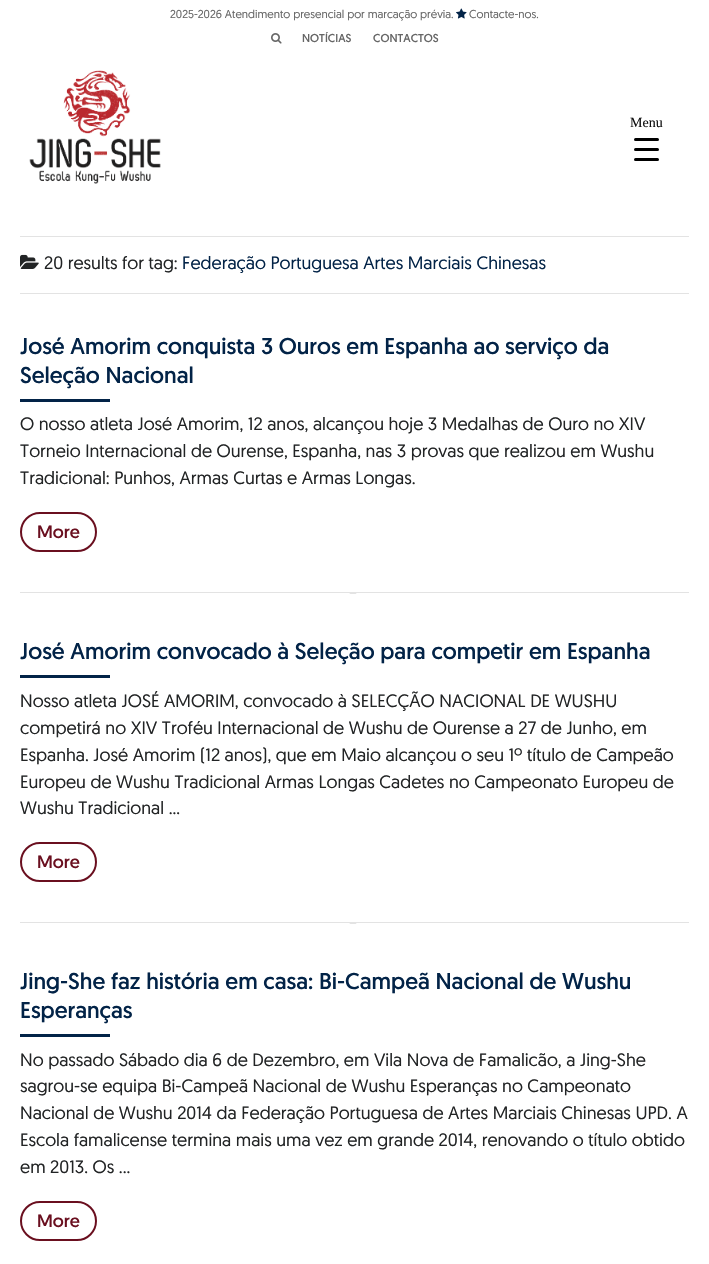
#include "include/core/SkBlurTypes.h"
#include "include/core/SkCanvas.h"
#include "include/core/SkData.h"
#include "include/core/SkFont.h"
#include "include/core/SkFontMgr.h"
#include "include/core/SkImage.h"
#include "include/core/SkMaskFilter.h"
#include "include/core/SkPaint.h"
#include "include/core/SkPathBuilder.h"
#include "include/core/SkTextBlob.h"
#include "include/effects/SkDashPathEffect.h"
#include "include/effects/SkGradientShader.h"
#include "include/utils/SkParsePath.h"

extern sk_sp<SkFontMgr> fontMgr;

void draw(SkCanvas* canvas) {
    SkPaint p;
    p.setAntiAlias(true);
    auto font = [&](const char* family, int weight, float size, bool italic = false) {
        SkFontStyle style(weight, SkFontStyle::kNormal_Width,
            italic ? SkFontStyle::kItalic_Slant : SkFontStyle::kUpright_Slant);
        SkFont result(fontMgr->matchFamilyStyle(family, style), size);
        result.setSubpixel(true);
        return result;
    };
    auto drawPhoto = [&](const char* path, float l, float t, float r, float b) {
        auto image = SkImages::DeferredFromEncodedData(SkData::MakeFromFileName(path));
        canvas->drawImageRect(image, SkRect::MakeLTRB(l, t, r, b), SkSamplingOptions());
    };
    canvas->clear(0xFFFFFFFF);
    auto font1 = font("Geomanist", 400, 11.4f);
    p.setColor(0xFF666666);
    canvas->drawString("2025-2026 Atendimento presencial por marcação prévia.", 170, 18, font1, p);
    drawPhoto("media/1.png", 456, 8, 467, 19);
    canvas->drawString("Contacte-nos.", 469, 18, font1, p);
    drawPhoto("media/2.png", 271, 33, 282, 44);
    auto font2 = font("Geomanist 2", 400, 11.4f);
    canvas->drawString("NOTÍCIAS", 302, 42, font2, p);
    canvas->drawString("CONTACTOS", 373, 42, font2, p);
    drawPhoto("media/3.png", 29, 70, 161, 184);
    auto font3 = font("Liberation Serif", 400, 14);
    p.setColor(0xFF0F0F0F);
    canvas->drawString("Menu", 630, 127, font3, p);
    p.setColor(0xFF000000);
    canvas->drawRoundRect(SkRect::MakeLTRB(634, 148, 659, 151), 1.5f, 1.5f, p);
    canvas->drawRoundRect(SkRect::MakeLTRB(634, 138, 659, 141), 1.5f, 1.5f, p);
    canvas->drawRoundRect(SkRect::MakeLTRB(634, 158, 659, 161), 1.5f, 1.5f, p);
    p.setColor(0xFFE3E3E3);
    canvas->drawRect(SkRect::MakeLTRB(20, 236, 689, 237), p);
    canvas->drawRect(SkRect::MakeLTRB(20, 293, 689, 294), p);
    drawPhoto("media/4.png", 20, 254, 39, 269);
    auto font4 = font("Geomanist", 400, 17.95f);
    p.setColor(0xFF222425);
    canvas->drawString("20 results for tag:", 44, 269, font4, p);
    p.setColor(0xFF022347);
    canvas->drawString("Federação Portuguesa Artes Marciais Chinesas", 182, 269, font4, p);
    auto font5 = font("Geomanist 2", 400, 22.8f);
    canvas->drawString("José Amorim conquista 3 Ouros em Espanha ao serviço da", 20, 354, font5, p);
    canvas->drawString("Seleção Nacional", 20, 383, font5, p);
    canvas->drawRect(SkRect::MakeLTRB(20, 399, 110, 402), p);
    p.setColor(0xFF222425);
    {
        const struct { const char* s; float x, y; } items[] = {
            {"O nosso atleta José Amorim, 12 anos, alcançou hoje 3 Medalhas de Ouro no XIV", 20, 430},
            {"Torneio Internacional de Ourense, Espanha, nas 3 provas que realizou em Wushu", 20, 457},
            {"Tradicional: Punhos, Armas Curtas e Armas Longas.", 20, 484},
        };
        for (auto [s, x, y] : items) {
            canvas->drawString(s, x, y, font4, p);
        }
    }
    p.setStyle(SkPaint::kStroke_Style);
    p.setStrokeWidth(2);
    p.setColor(0xFF6A0F1F);
    canvas->drawRoundRect(SkRect::MakeLTRB(21, 513, 96, 551), 19, 19, p);
    auto font6 = font("Geomanist 2", 400, 17.95f);
    p.setStyle(SkPaint::kFill_Style);
    canvas->drawString("More", 37, 538, font6, p);
    p.setColor(0xFFE3E3E3);
    canvas->drawRect(SkRect::MakeLTRB(20, 592, 689, 593), p);
    drawPhoto("media/5.png", 349, 593, 357, 594);
    p.setColor(0xFF022347);
    canvas->drawString("José Amorim convocado à Seleção para competir em Espanha", 20, 659, font5, p);
    canvas->drawRect(SkRect::MakeLTRB(20, 675, 110, 678), p);
    p.setColor(0xFF222425);
    {
        const struct { const char* s; float x, y; } items[] = {
            {"Nosso atleta JOSÉ AMORIM, convocado à SELECÇÃO NACIONAL DE WUSHU", 20, 707},
            {"competirá no XIV Troféu Internacional de Wushu de Ourense a 27 de Junho, em", 20, 734},
            {"Espanha. José Amorim (12 anos), que em Maio alcançou o seu 1º título de Campeão", 20, 761},
            {"Europeu de Wushu Tradicional Armas Longas Cadetes no Campeonato Europeu de", 20, 788},
            {"Wushu Tradicional ...", 20, 814},
        };
        for (auto [s, x, y] : items) {
            canvas->drawString(s, x, y, font4, p);
        }
    }
    p.setStyle(SkPaint::kStroke_Style);
    p.setColor(0xFF6A0F1F);
    canvas->drawRoundRect(SkRect::MakeLTRB(21, 843, 96, 881), 19, 19, p);
    p.setStyle(SkPaint::kFill_Style);
    canvas->drawString("More", 37, 868, font6, p);
    p.setColor(0xFFE3E3E3);
    canvas->drawRect(SkRect::MakeLTRB(20, 922, 689, 923), p);
    drawPhoto("media/5.png", 349, 923, 357, 924);
    p.setColor(0xFF022347);
    canvas->drawString("Jing-She faz história em casa: Bi-Campeã Nacional de Wushu", 20, 989, font5, p);
    canvas->drawString("Esperanças", 20, 1018, font5, p);
    canvas->drawRect(SkRect::MakeLTRB(20, 1034, 110, 1037), p);
    p.setColor(0xFF222425);
    {
        const struct { const char* s; float x, y; } items[] = {
            {"No passado Sábado dia 6 de Dezembro, em Vila Nova de Famalicão, a Jing-She", 20, 1066},
            {"sagrou-se equipa Bi-Campeã Nacional de Wushu Esperanças no Campeonato", 20, 1092},
            {"Nacional de Wushu 2014 da Federação Portuguesa de Artes Marciais Chinesas UPD. A", 20, 1119},
            {"Escola famalicense termina mais uma vez em grande 2014, renovando o título obtido", 20, 1146},
            {"em 2013. Os ...", 20, 1173},
        };
        for (auto [s, x, y] : items) {
            canvas->drawString(s, x, y, font4, p);
        }
    }
    p.setStyle(SkPaint::kStroke_Style);
    p.setColor(0xFF6A0F1F);
    canvas->drawRoundRect(SkRect::MakeLTRB(21, 1202, 96, 1240), 19, 19, p);
    p.setStyle(SkPaint::kFill_Style);
    canvas->drawString("More", 37, 1227, font6, p);
}
